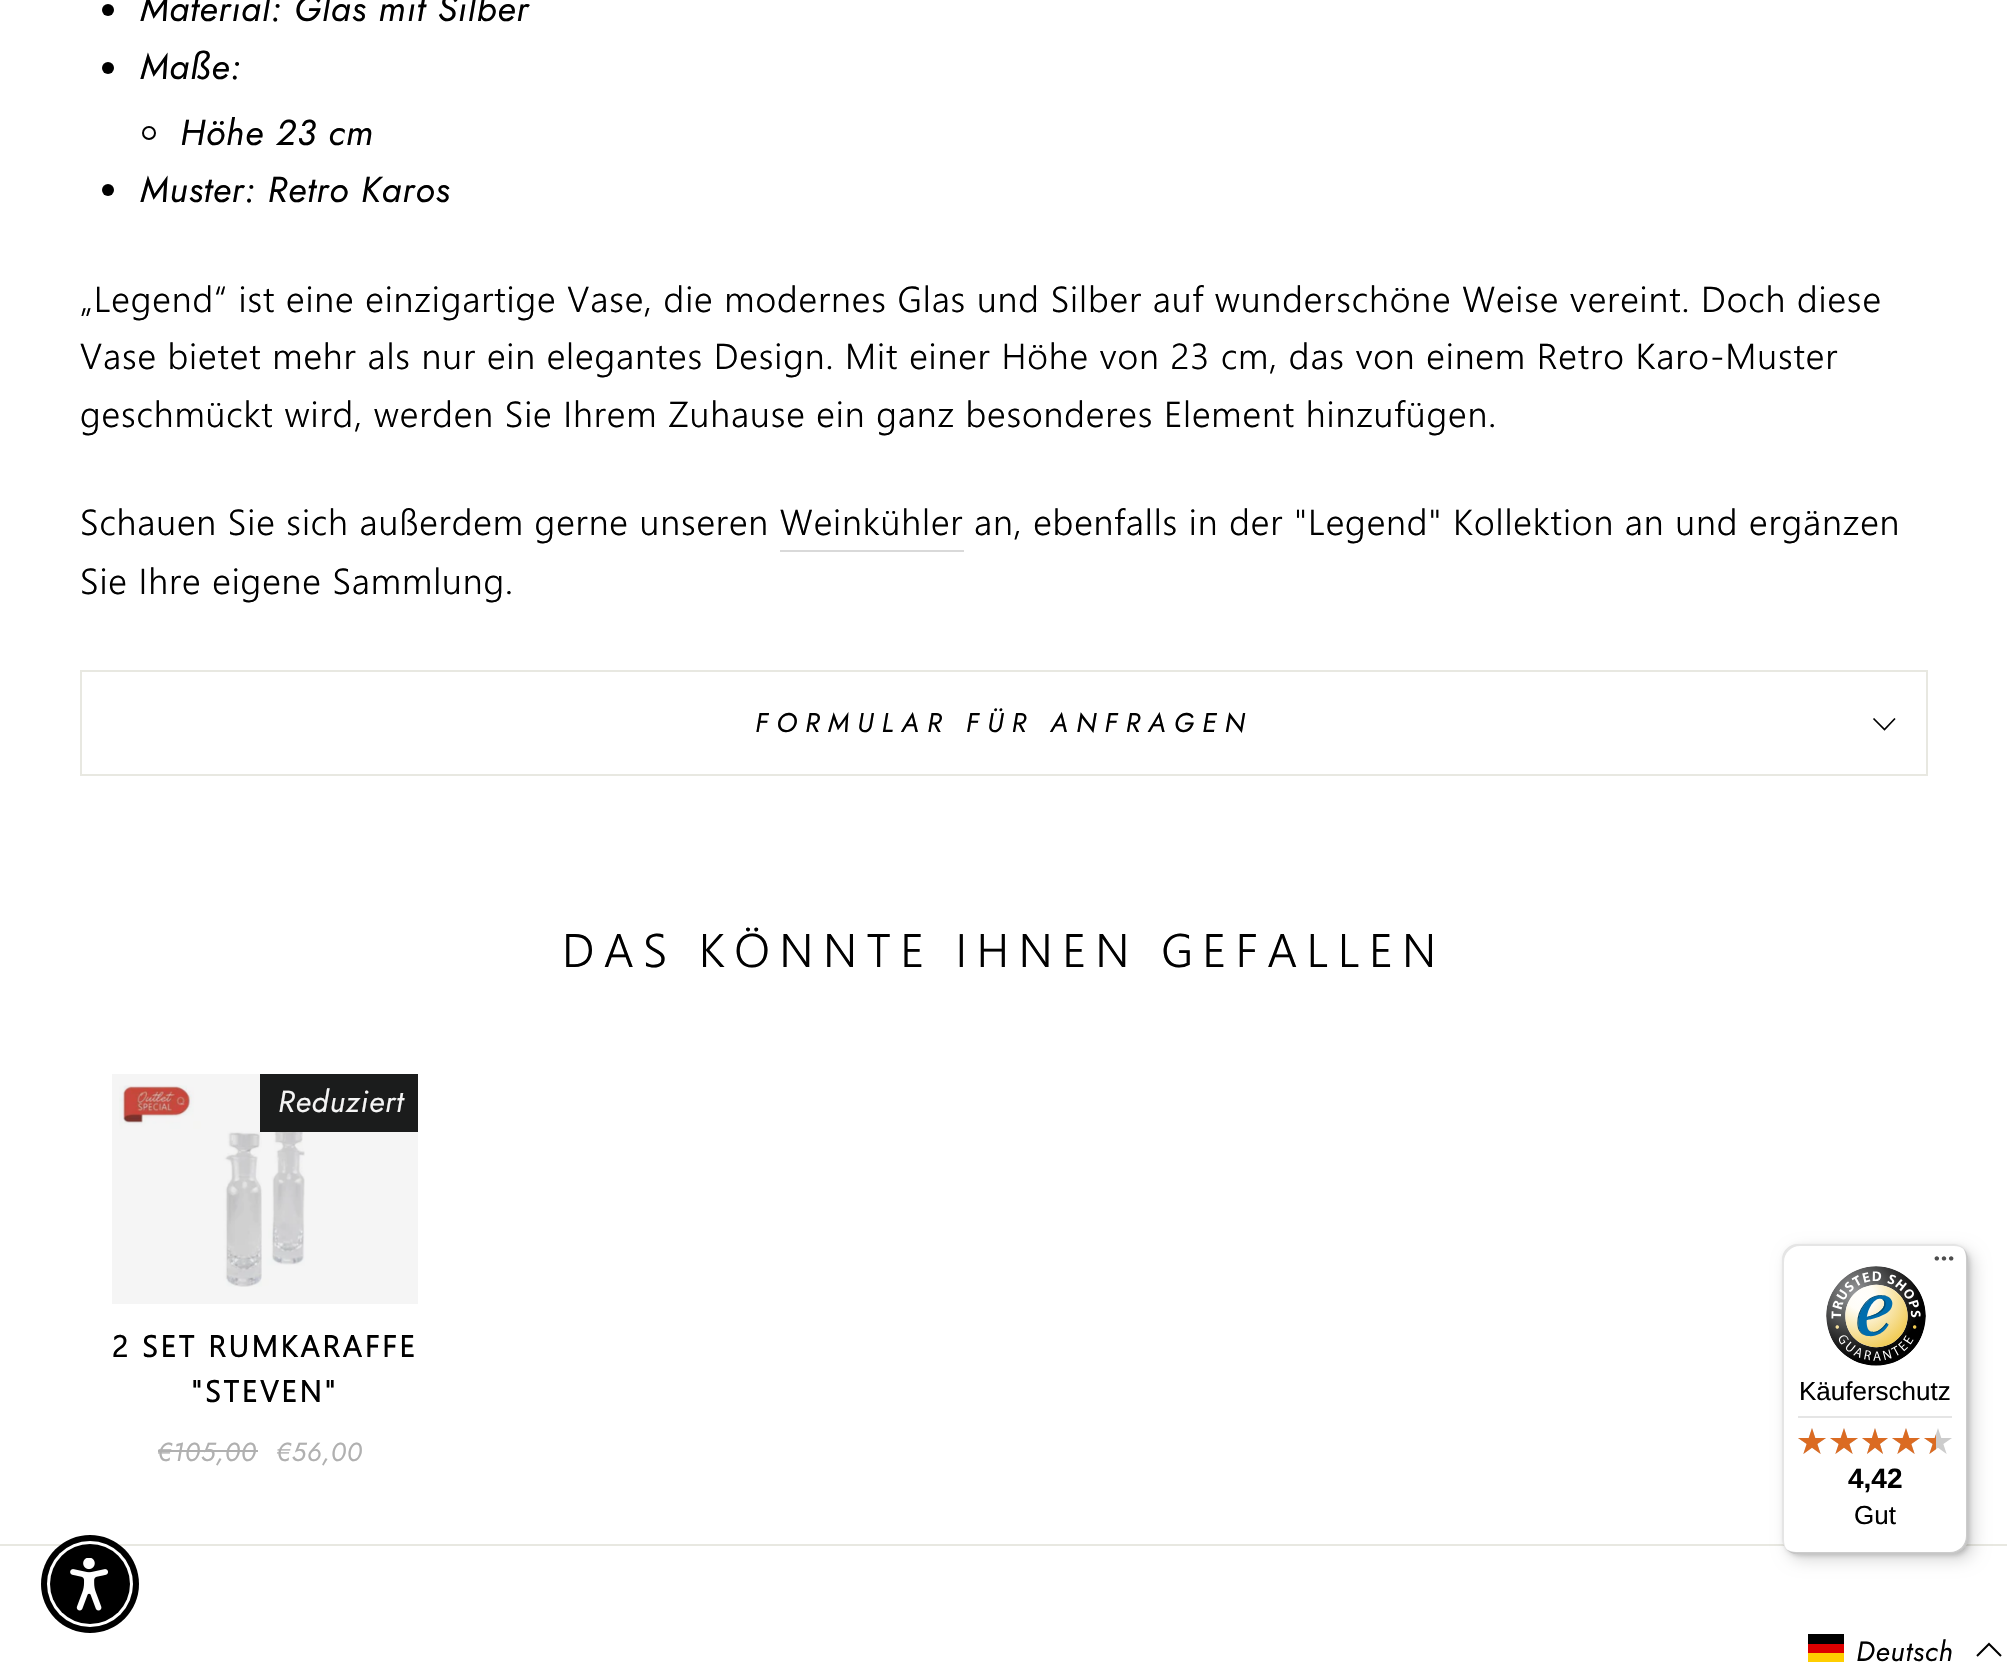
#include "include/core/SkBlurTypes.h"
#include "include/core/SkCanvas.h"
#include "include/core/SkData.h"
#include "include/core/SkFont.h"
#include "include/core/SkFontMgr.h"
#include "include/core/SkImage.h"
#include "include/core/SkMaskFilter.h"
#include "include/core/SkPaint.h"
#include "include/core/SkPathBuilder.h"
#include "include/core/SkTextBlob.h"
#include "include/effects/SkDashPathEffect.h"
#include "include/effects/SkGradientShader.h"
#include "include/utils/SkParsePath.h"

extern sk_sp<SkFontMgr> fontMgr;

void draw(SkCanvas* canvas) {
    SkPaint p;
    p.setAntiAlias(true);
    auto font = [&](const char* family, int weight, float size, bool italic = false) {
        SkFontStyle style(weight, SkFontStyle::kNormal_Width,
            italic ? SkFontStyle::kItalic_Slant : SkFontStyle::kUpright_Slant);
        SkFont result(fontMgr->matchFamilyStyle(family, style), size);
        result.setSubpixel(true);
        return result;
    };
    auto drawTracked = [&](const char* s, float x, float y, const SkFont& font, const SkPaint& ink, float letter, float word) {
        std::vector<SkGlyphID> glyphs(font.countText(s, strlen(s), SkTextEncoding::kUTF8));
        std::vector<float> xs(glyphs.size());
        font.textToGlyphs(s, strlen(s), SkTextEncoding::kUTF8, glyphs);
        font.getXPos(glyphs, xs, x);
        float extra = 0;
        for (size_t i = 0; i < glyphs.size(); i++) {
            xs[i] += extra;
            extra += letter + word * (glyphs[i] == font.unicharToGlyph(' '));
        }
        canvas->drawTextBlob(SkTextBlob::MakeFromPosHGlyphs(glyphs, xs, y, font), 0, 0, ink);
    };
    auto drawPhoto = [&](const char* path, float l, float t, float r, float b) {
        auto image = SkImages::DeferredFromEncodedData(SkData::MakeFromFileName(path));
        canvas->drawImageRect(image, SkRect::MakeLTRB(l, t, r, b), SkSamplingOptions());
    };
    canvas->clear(0xFFFFFFFF);
    p.setColor(0xFFF5F5F5);
    canvas->drawRect(SkRect::MakeLTRB(112, 1074, 418, 1304), p);
    p.setColor(0xFF000000);
    canvas->drawCircle(108, 10, 6, p);
    auto font1 = font("Jost", 400, 36, true);
    drawTracked("Material: Glas mit Silber", 140, 21, font1, p, 0.9f, 0);
    canvas->drawCircle(108, 68, 6, p);
    drawTracked("Maße:", 140, 79, font1, p, 0.9f, 0);
    p.setStyle(SkPaint::kStroke_Style);
    p.setStrokeWidth(2);
    canvas->drawCircle(149, 133, 6, p);
    p.setStyle(SkPaint::kFill_Style);
    drawTracked("Höhe 23 cm", 180, 145, font1, p, 0.9f, 0);
    canvas->drawCircle(108, 190, 6, p);
    drawTracked("Muster: Retro Karos", 140, 202, font1, p, 0.9f, 0);
    auto font2 = font("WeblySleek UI", 300, 36);
    {
        const struct { const char* s; float x, y; } items[] = {
            {"„Legend“ ist eine einzigartige Vase, die modernes Glas und Silber auf wunderschöne Weise vereint. Doch diese", 80, 312},
            {"Vase bietet mehr als nur ein elegantes Design. Mit einer Höhe von 23 cm, das von einem Retro Karo-Muster", 80, 369},
            {"geschmückt wird, werden Sie Ihrem Zuhause ein ganz besonderes Element hinzufügen.", 80, 427},
            {"Schauen Sie sich außerdem gerne unseren Weinkühler", 80, 535},
            {"an, ebenfalls in der \"Legend\" Kollektion an und ergänzen", 974, 535},
        };
        for (auto [s, x, y] : items) {
            drawTracked(s, x, y, font2, p, 0.9f, 0);
        }
    }
    p.setColor(0xFFD9D9D9);
    canvas->drawRect(SkRect::MakeLTRB(780, 550, 964, 552), p);
    p.setColor(0xFF000000);
    drawTracked("Sie Ihre eigene Sammlung.", 80, 594, font2, p, 0.9f, 0);
    {
        const struct { float l, t, r, b; SkColor color; } items[] = {
            {80, 774, 1928, 776, 0xFFE8E8E1},
            {80, 670, 1928, 672, 0xFFE8E8E1},
            {1926, 670, 1928, 774, 0xFFE8E8E1},
            {80, 670, 82, 774, 0xFFE8E8E1},
        };
        for (auto [l, t, r, b, color] : items) {
            p.setColor(color);
            canvas->drawRect(SkRect::MakeLTRB(l, t, r, b), p);
        }
    }
    auto font3 = font("Jost", 400, 27, true);
    p.setColor(0xFF000000);
    drawTracked("FORMULAR FÜR ANFRAGEN", 755, 732, font3, p, 8.1f, 0);
    p.setStyle(SkPaint::kStroke_Style);
    p.setStrokeWidth(1.7f);
    canvas->drawPath(SkPathBuilder().moveTo(1873.5f, 718.5f).lineTo(1884.5f, 729.5f).lineTo(1895, 718.5f).detach(), p);
    auto font4 = font("WeblySleek UI", 300, 47);
    p.setStyle(SkPaint::kFill_Style);
    drawTracked("DAS KÖNNTE IHNEN GEFALLEN", 562, 967, font4, p, 9.4f, 0);
    drawPhoto("media/1.png", 119, 1085, 305, 1287);
    p.setColor(0xFF1B1C1C);
    canvas->drawRect(SkRect::MakeLTRB(260, 1074, 418, 1132), p);
    auto font5 = font("Jost", 400, 30.5f, true);
    p.setColor(0xFFF5F5F5);
    drawTracked("Reduziert", 278, 1112, font5, p, 0.9f, 0);
    auto font6 = font("WeblySleek UI", 700, 30);
    p.setColor(0xFF000000);
    drawTracked("2 SET RUMKARAFFE", 112, 1357, font6, p, 3, 0);
    drawTracked("\"STEVEN\"", 191, 1402, font6, p, 3, 0);
    auto font7 = font("Jost", 400, 26, true);
    p.setColor(0xFFB0B0B0);
    drawTracked("€105,00", 157, 1461, font7, p, 0.9f, 0);
    canvas->drawRect(SkRect::MakeLTRB(158, 1450, 258, 1452), p);
    drawTracked("€56,00", 276, 1461, font7, p, 0.9f, 0);
    p.setColor(0xFFE8E8E1);
    canvas->drawRect(SkRect::MakeLTRB(0, 1544, 2007, 1546), p);
    p.setColor(0x26000000);
    p.setMaskFilter(SkMaskFilter::MakeBlur(kNormal_SkBlurStyle, 8));
    canvas->drawRoundRect(SkRect::MakeLTRB(1788, 1250, 1974, 1560), 16, 16, p);
    p.setMaskFilter(nullptr);
    p.setMaskFilter(SkMaskFilter::MakeBlur(kNormal_SkBlurStyle, 2));
    canvas->drawRoundRect(SkRect::MakeLTRB(1784, 1246, 1970, 1556), 16, 16, p);
    p.setMaskFilter(nullptr);
    p.setColor(0xFFFFFFFF);
    canvas->drawRoundRect(SkRect::MakeLTRB(1782, 1244, 1968, 1554), 16, 16, p);
    p.setColor(0x1A000000);
    canvas->drawPath(SkPathBuilder().moveTo(1800, 1246).lineTo(1954, 1246).cubicTo(1958, 1246, 1961, 1247, 1964, 1249).cubicTo(1961, 1246, 1957, 1244, 1952, 1244).lineTo(1798, 1244).cubicTo(1789, 1244, 1782, 1251, 1782, 1260).lineTo(1782, 1538).cubicTo(1782, 1543, 1784, 1547, 1787, 1550).cubicTo(1785, 1547, 1784, 1544, 1784, 1540).lineTo(1784, 1262).cubicTo(1784, 1253, 1791, 1246, 1800, 1246).close().detach(), p);
    p.setColor(0x33000000);
    canvas->drawPath(SkPathBuilder().moveTo(1786, 1549).cubicTo(1789, 1552, 1793, 1554, 1798, 1554).lineTo(1952, 1554).cubicTo(1961, 1554, 1968, 1547, 1968, 1538).lineTo(1968, 1260).cubicTo(1968, 1255, 1966, 1251, 1963, 1248).cubicTo(1965, 1251, 1966, 1254, 1966, 1258).lineTo(1966, 1536).cubicTo(1966, 1545, 1959, 1552, 1950, 1552).lineTo(1796, 1552).cubicTo(1792, 1552, 1789, 1551, 1786, 1549).close().detach(), p);
    p.setColor(0x33323232);
    canvas->drawPath(SkPathBuilder().moveTo(1787, 1549).cubicTo(1790, 1552, 1794, 1554, 1798, 1554).lineTo(1952, 1554).cubicTo(1961, 1554, 1968, 1547, 1968, 1538).lineTo(1968, 1260).cubicTo(1968, 1256, 1966, 1252, 1963, 1249).cubicTo(1966, 1252, 1967, 1255, 1967, 1259).lineTo(1967, 1537).cubicTo(1967, 1546, 1960, 1553, 1951, 1553).lineTo(1797, 1553).cubicTo(1793, 1553, 1790, 1552, 1787, 1549).close().detach(), p);
    p.setColor(0x4DFFFFFF);
    canvas->drawPath(SkPathBuilder().moveTo(1787, 1549).cubicTo(1790, 1552, 1794, 1554, 1798, 1554).lineTo(1952, 1554).cubicTo(1961, 1554, 1968, 1547, 1968, 1538).lineTo(1968, 1260).cubicTo(1968, 1256, 1966, 1252, 1963, 1249).cubicTo(1966, 1252, 1967, 1255, 1967, 1259).lineTo(1967, 1537).cubicTo(1967, 1546, 1960, 1553, 1951, 1553).lineTo(1797, 1553).cubicTo(1793, 1553, 1790, 1552, 1787, 1549).close().detach(), p);
    drawPhoto("media/2.png", 1934, 1256, 1954, 1261);
    drawPhoto("media/3.png", 1826, 1266, 1926, 1366);
    auto font8 = font("Liberation Sans", 400, 26);
    p.setColor(0xFF000000);
    canvas->drawString("Käuferschutz", 1799, 1400, font8, p);
    p.setColor(0xFFE5E5E5);
    canvas->drawRect(SkRect::MakeLTRB(1798, 1416, 1952, 1418), p);
    drawPhoto("media/4.png", 1798, 1428, 1826, 1454);
    drawPhoto("media/4.png", 1830, 1428, 1858, 1454);
    drawPhoto("media/5.png", 1862, 1428, 1888, 1454);
    drawPhoto("media/4.png", 1892, 1428, 1920, 1454);
    drawPhoto("media/4.png", 1924, 1428, 1952, 1454);
    drawPhoto("media/6.png", 1798, 1428, 1826, 1454);
    drawPhoto("media/6.png", 1830, 1428, 1858, 1454);
    drawPhoto("media/7.png", 1862, 1428, 1888, 1454);
    drawPhoto("media/6.png", 1892, 1428, 1920, 1454);
    drawPhoto("media/8.png", 1924, 1434, 1936, 1454);
    auto font9 = font("Liberation Sans", 700, 28);
    p.setColor(0xFF000000);
    canvas->drawString("4,42", 1848, 1488, font9, p);
    canvas->drawString("Gut", 1854, 1524, font8, p);
    canvas->drawCircle(90, 1584, 49, p);
    p.setColor(0xFFFFFFFF);
    canvas->drawCircle(90, 1584, 43, p);
    p.setColor(0xFF000000);
    canvas->drawCircle(90, 1584, 40, p);
    drawPhoto("media/9.png", 70, 1558, 108, 1611);
    {
        const struct { float l, t, r, b; SkColor color; } items[] = {
            {1808, 1653, 1844, 1662, 0xFFFFCE00},
            {1808, 1634, 1844, 1644, 0xFF000000},
            {1808, 1644, 1844, 1653, 0xFFDD0000},
        };
        for (auto [l, t, r, b, color] : items) {
            p.setColor(color);
            canvas->drawRect(SkRect::MakeLTRB(l, t, r, b), p);
        }
    }
    auto font10 = font("Jost", 400, 28, true);
    p.setColor(0xFF000000);
    drawTracked("Deutsch", 1856, 1661, font10, p, 0.9f, 0);
    p.setStyle(SkPaint::kStroke_Style);
    p.setStrokeWidth(2);
    canvas->drawPath(SkPathBuilder().moveTo(2001, 1656).lineTo(1989, 1644).lineTo(1977, 1656).detach(), p);
}
